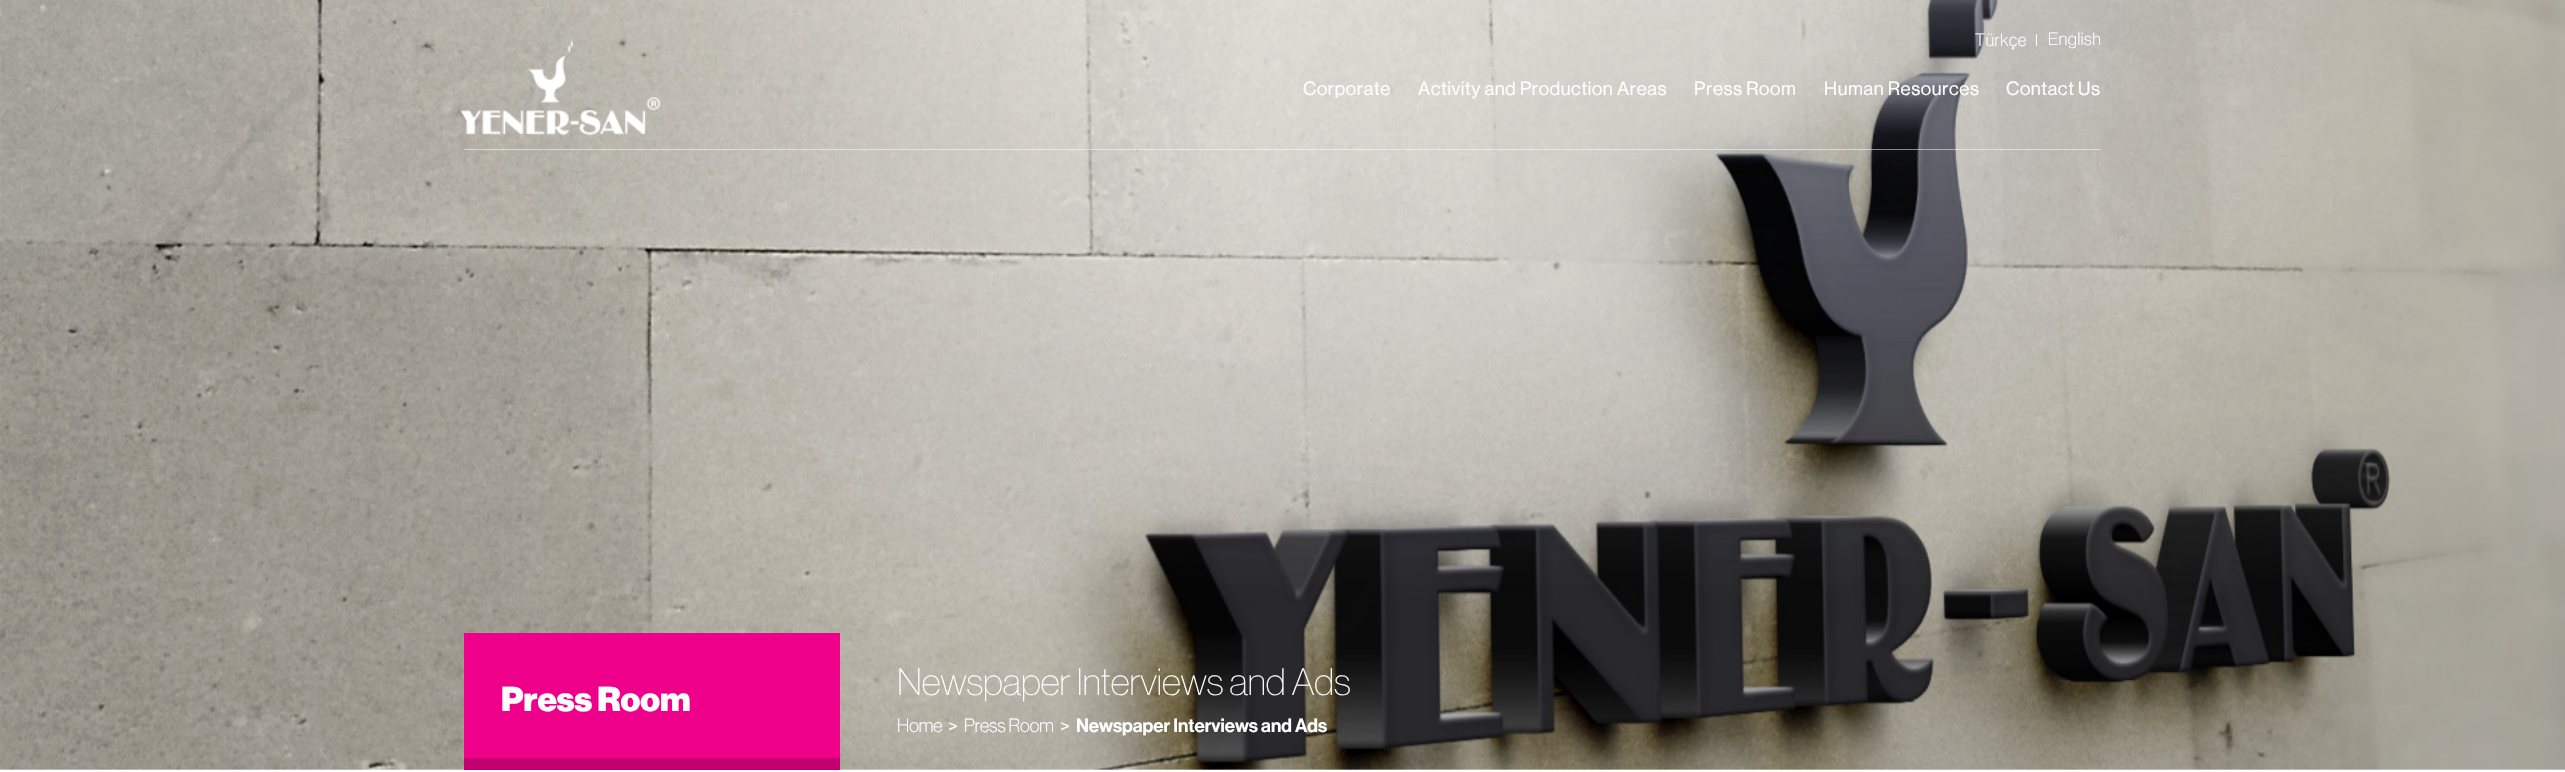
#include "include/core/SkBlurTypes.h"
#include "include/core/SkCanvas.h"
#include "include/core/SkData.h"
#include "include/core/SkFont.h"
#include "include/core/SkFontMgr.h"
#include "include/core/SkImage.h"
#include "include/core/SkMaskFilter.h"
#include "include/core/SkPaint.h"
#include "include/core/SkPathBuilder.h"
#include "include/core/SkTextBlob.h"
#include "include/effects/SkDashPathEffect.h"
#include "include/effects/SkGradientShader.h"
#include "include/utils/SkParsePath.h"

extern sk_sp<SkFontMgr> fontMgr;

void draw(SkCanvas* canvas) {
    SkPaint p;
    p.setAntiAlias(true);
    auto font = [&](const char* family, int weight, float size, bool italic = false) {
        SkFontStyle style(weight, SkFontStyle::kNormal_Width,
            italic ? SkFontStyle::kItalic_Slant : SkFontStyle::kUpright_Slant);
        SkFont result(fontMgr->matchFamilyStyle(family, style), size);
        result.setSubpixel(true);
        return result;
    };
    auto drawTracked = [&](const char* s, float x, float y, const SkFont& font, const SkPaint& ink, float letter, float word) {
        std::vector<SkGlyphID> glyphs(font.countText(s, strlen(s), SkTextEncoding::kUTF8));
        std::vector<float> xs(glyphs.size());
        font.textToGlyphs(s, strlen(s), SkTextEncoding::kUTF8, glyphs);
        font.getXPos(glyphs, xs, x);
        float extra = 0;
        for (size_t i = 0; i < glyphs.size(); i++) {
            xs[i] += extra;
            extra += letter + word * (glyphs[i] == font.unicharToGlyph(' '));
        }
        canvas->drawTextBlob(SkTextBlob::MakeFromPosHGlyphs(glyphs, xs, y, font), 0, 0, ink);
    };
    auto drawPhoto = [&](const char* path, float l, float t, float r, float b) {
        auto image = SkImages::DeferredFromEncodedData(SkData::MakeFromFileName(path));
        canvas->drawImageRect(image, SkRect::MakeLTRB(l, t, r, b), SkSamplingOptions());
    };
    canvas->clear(0xFFFFFFFF);
    canvas->save();
    canvas->clipPath(SkPathBuilder(SkPathFillType::kEvenOdd).moveTo(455, 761).lineTo(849, 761).lineTo(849, 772).lineTo(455, 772).close().moveTo(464, 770).lineTo(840, 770).lineTo(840, 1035).lineTo(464, 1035).close().detach(), true);
    p.setColor(0x26000000);
    p.setMaskFilter(SkMaskFilter::MakeBlur(kNormal_SkBlurStyle, 2.5f));
    canvas->drawRect(SkRect::MakeLTRB(464, 770, 840, 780), p);
    p.setMaskFilter(nullptr);
    canvas->restore();
    drawPhoto("media/1.png", 0, 0, 2565, 770);
    p.setColor(0x80FFFFFF);
    canvas->drawRect(SkRect::MakeLTRB(464, 149, 2101, 150), p);
    drawPhoto("media/2.png", 460, 40, 661, 136);
    auto font1 = font("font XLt", 300, 17.5f);
    p.setColor(0xFFFFFFFF);
    drawTracked("Türkçe", 1975, 46, font1, p, 0.6f, 0);
    canvas->drawRect(SkRect::MakeLTRB(2036, 34, 2037, 46), p);
    drawTracked("English", 2048, 45, font1, p, 0.6f, 0);
    auto font2 = font("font", 400, 18.75f);
    {
        const struct { const char* s; float x, y; } items[] = {
            {"Corporate", 1303, 95},
            {"Activity and Production Areas", 1418, 95},
            {"Press Room", 1694, 95},
            {"Human Resources", 1824, 95},
            {"Contact Us", 2006, 95},
        };
        for (auto [s, x, y] : items) {
            drawTracked(s, x, y, font2, p, 0.6f, 0);
        }
    }
    p.setColor(0xFFEF008A);
    canvas->drawRect(SkRect::MakeLTRB(464, 633, 840, 758), p);
    auto font3 = font("font", 900, 33.75f);
    p.setColor(0xFFFFFFFF);
    canvas->drawString("Press Room", 501, 711, font3, p);
    p.setColor(0xFFBF006E);
    canvas->drawRect(SkRect::MakeLTRB(464, 758, 840, 770), p);
    auto font4 = font("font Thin", 100, 37.5f);
    p.setColor(0xFFFFFFFF);
    canvas->drawString("Newspaper Interviews and Ads", 897, 695, font4, p);
    auto font5 = font("font XLt", 300, 18.75f);
    canvas->drawString("Home", 897, 732, font5, p);
    canvas->drawString(">", 948, 732, font2, p);
    canvas->drawString("Press Room", 964, 732, font5, p);
    canvas->drawString(">", 1060, 732, font2, p);
    auto font6 = font("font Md", 500, 18.75f);
    canvas->drawString("Newspaper Interviews and Ads", 1076, 732, font6, p);
}
